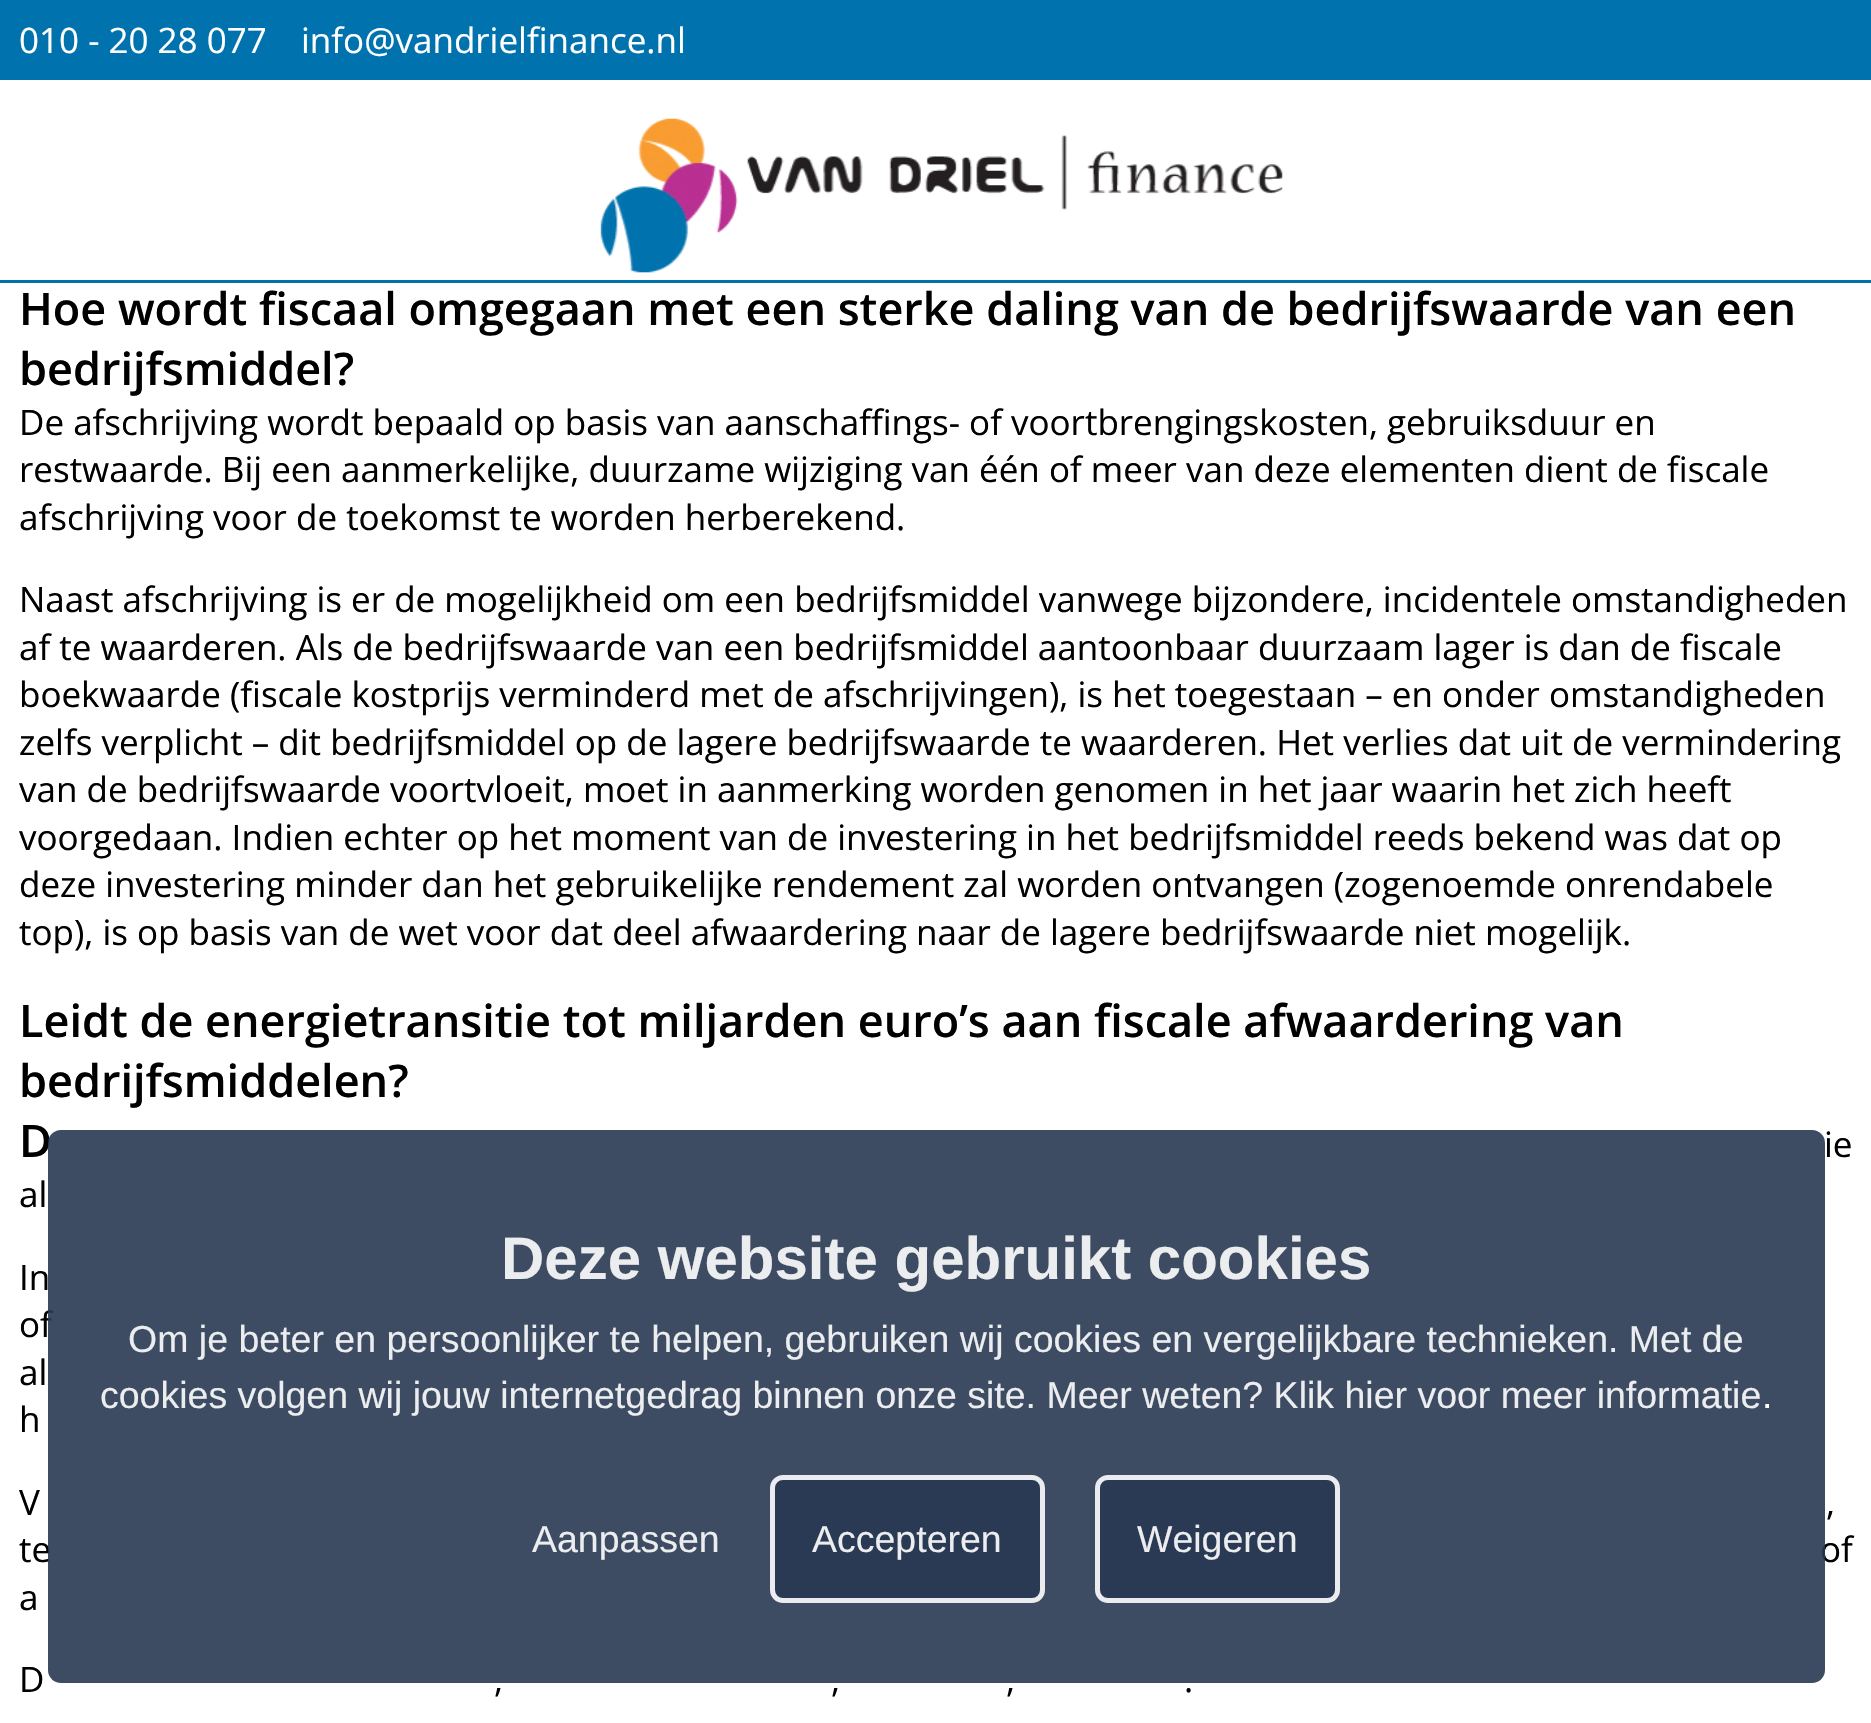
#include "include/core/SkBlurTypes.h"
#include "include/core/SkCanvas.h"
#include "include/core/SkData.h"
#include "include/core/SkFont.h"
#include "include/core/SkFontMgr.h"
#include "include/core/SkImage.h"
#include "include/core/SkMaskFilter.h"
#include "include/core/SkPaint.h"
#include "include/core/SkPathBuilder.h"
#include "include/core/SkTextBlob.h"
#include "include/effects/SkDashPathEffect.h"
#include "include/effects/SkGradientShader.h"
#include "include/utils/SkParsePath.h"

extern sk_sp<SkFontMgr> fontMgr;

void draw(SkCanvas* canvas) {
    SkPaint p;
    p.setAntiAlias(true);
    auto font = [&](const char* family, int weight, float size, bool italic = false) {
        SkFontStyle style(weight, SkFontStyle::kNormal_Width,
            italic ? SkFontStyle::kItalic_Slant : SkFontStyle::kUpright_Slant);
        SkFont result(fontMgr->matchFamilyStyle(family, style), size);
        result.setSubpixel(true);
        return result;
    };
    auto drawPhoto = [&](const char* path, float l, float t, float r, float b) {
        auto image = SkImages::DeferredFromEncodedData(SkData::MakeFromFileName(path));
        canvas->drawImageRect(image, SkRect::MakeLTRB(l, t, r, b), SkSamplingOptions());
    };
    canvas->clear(0xFFFFFFFF);
    p.setColor(0xFF0073AE);
    canvas->drawRect(SkRect::MakeLTRB(0, 280, 1871, 283), p);
    canvas->drawRect(SkRect::MakeLTRB(0, 0, 1871, 80), p);
    auto font1 = font("Open Sans", 400, 35);
    p.setColor(0xFFFFFFFF);
    canvas->drawString("010 - 20 28 077", 19, 53, font1, p);
    canvas->drawString("info@vandrielfinance.nl", 301, 53, font1, p);
    drawPhoto("media/1.png", 600, 118, 1283, 273);
    auto font2 = font("Open Sans", 600, 45);
    p.setColor(0xFF000000);
    canvas->drawString("Hoe wordt fiscaal omgegaan met een sterke daling van de bedrijfswaarde van een", 19, 325, font2, p);
    canvas->drawString("bedrijfsmiddel?", 19, 385, font2, p);
    {
        const struct { const char* s; float x, y; } items[] = {
            {"De afschrijving wordt bepaald op basis van aanschaffings- of voortbrengingskosten, gebruiksduur en", 19, 435},
            {"restwaarde. Bij een aanmerkelijke, duurzame wijziging van één of meer van deze elementen dient de fiscale", 19, 482},
            {"afschrijving voor de toekomst te worden herberekend.", 19, 530},
            {"Naast afschrijving is er de mogelijkheid om een bedrijfsmiddel vanwege bijzondere, incidentele omstandigheden", 19, 612},
            {"af te waarderen. Als de bedrijfswaarde van een bedrijfsmiddel aantoonbaar duurzaam lager is dan de fiscale", 19, 660},
            {"boekwaarde (fiscale kostprijs verminderd met de afschrijvingen), is het toegestaan – en onder omstandigheden", 19, 707},
            {"zelfs verplicht – dit bedrijfsmiddel op de lagere bedrijfswaarde te waarderen. Het verlies dat uit de vermindering", 19, 755},
            {"van de bedrijfswaarde voortvloeit, moet in aanmerking worden genomen in het jaar waarin het zich heeft", 19, 802},
            {"voorgedaan. Indien echter op het moment van de investering in het bedrijfsmiddel reeds bekend was dat op", 19, 850},
            {"deze investering minder dan het gebruikelijke rendement zal worden ontvangen (zogenoemde onrendabele", 19, 897},
            {"top), is op basis van de wet voor dat deel afwaardering naar de lagere bedrijfswaarde niet mogelijk.", 19, 945},
        };
        for (auto [s, x, y] : items) {
            canvas->drawString(s, x, y, font1, p);
        }
    }
    {
        const struct { const char* s; float x, y; } items[] = {
            {"Leidt de energietransitie tot miljarden euro’s aan fiscale afwaardering van", 19, 1037},
            {"bedrijfsmiddelen?", 19, 1097},
            {"D", 19, 1157},
        };
        for (auto [s, x, y] : items) {
            canvas->drawString(s, x, y, font2, p);
        }
    }
    {
        const struct { const char* s; float x, y; } items[] = {
            {"ie", 1824, 1157},
            {"al", 19, 1207},
            {"In", 19, 1290},
            {"of", 19, 1337},
            {"al", 19, 1385},
            {"h", 19, 1432},
            {"V", 19, 1515},
            {",", 1826, 1515},
            {"te", 19, 1562},
            {"of", 1820, 1562},
            {"a", 19, 1610},
            {"D", 19, 1692},
            {",", 494, 1692},
            {",", 831, 1692},
            {",", 1006, 1692},
            {".", 1184, 1692},
        };
        for (auto [s, x, y] : items) {
            canvas->drawString(s, x, y, font1, p);
        }
    }
    p.setColor(0xE6283752);
    canvas->drawRoundRect(SkRect::MakeLTRB(48, 1130, 1825, 1683), 13, 13, p);
    auto font3 = font("Liberation Sans", 700, 60);
    p.setColor(0xFFEBEDEF);
    canvas->drawString("Deze website gebruikt cookies", 501, 1279, font3, p);
    auto font4 = font("Liberation Sans", 400, 37.5f);
    canvas->drawString("Om je beter en persoonlijker te helpen, gebruiken wij cookies en vergelijkbare technieken. Met de", 128, 1352, font4, p);
    canvas->drawString("cookies volgen wij jouw internetgedrag binnen onze site. Meer weten? Klik hier voor meer informatie", 100, 1408, font4, p);
    p.setColor(0xFFFFFFFF);
    canvas->drawString(".", 1762, 1408, font4, p);
    p.setColor(0xFFEBEDEF);
    canvas->drawString("Aanpassen", 532, 1552, font4, p);
    p.setColor(0xE6283752);
    canvas->drawRoundRect(SkRect::MakeLTRB(770, 1475, 1045, 1603), 13, 13, p);
    p.setStyle(SkPaint::kStroke_Style);
    p.setStrokeWidth(5);
    p.setColor(0xE6FFFFFF);
    canvas->drawRoundRect(SkRect::MakeLTRB(772.5f, 1477.5f, 1042.5f, 1600.5f), 10.5f, 10.5f, p);
    p.setStyle(SkPaint::kFill_Style);
    p.setColor(0xFFEBEDEF);
    canvas->drawString("Accepteren", 812, 1552, font4, p);
    p.setColor(0xE6283752);
    canvas->drawRoundRect(SkRect::MakeLTRB(1095, 1475, 1340, 1603), 13, 13, p);
    p.setStyle(SkPaint::kStroke_Style);
    p.setColor(0xE6FFFFFF);
    canvas->drawRoundRect(SkRect::MakeLTRB(1097.5f, 1477.5f, 1337.5f, 1600.5f), 10.5f, 10.5f, p);
    p.setStyle(SkPaint::kFill_Style);
    p.setColor(0xFFEBEDEF);
    canvas->drawString("Weigeren", 1137, 1552, font4, p);
}
